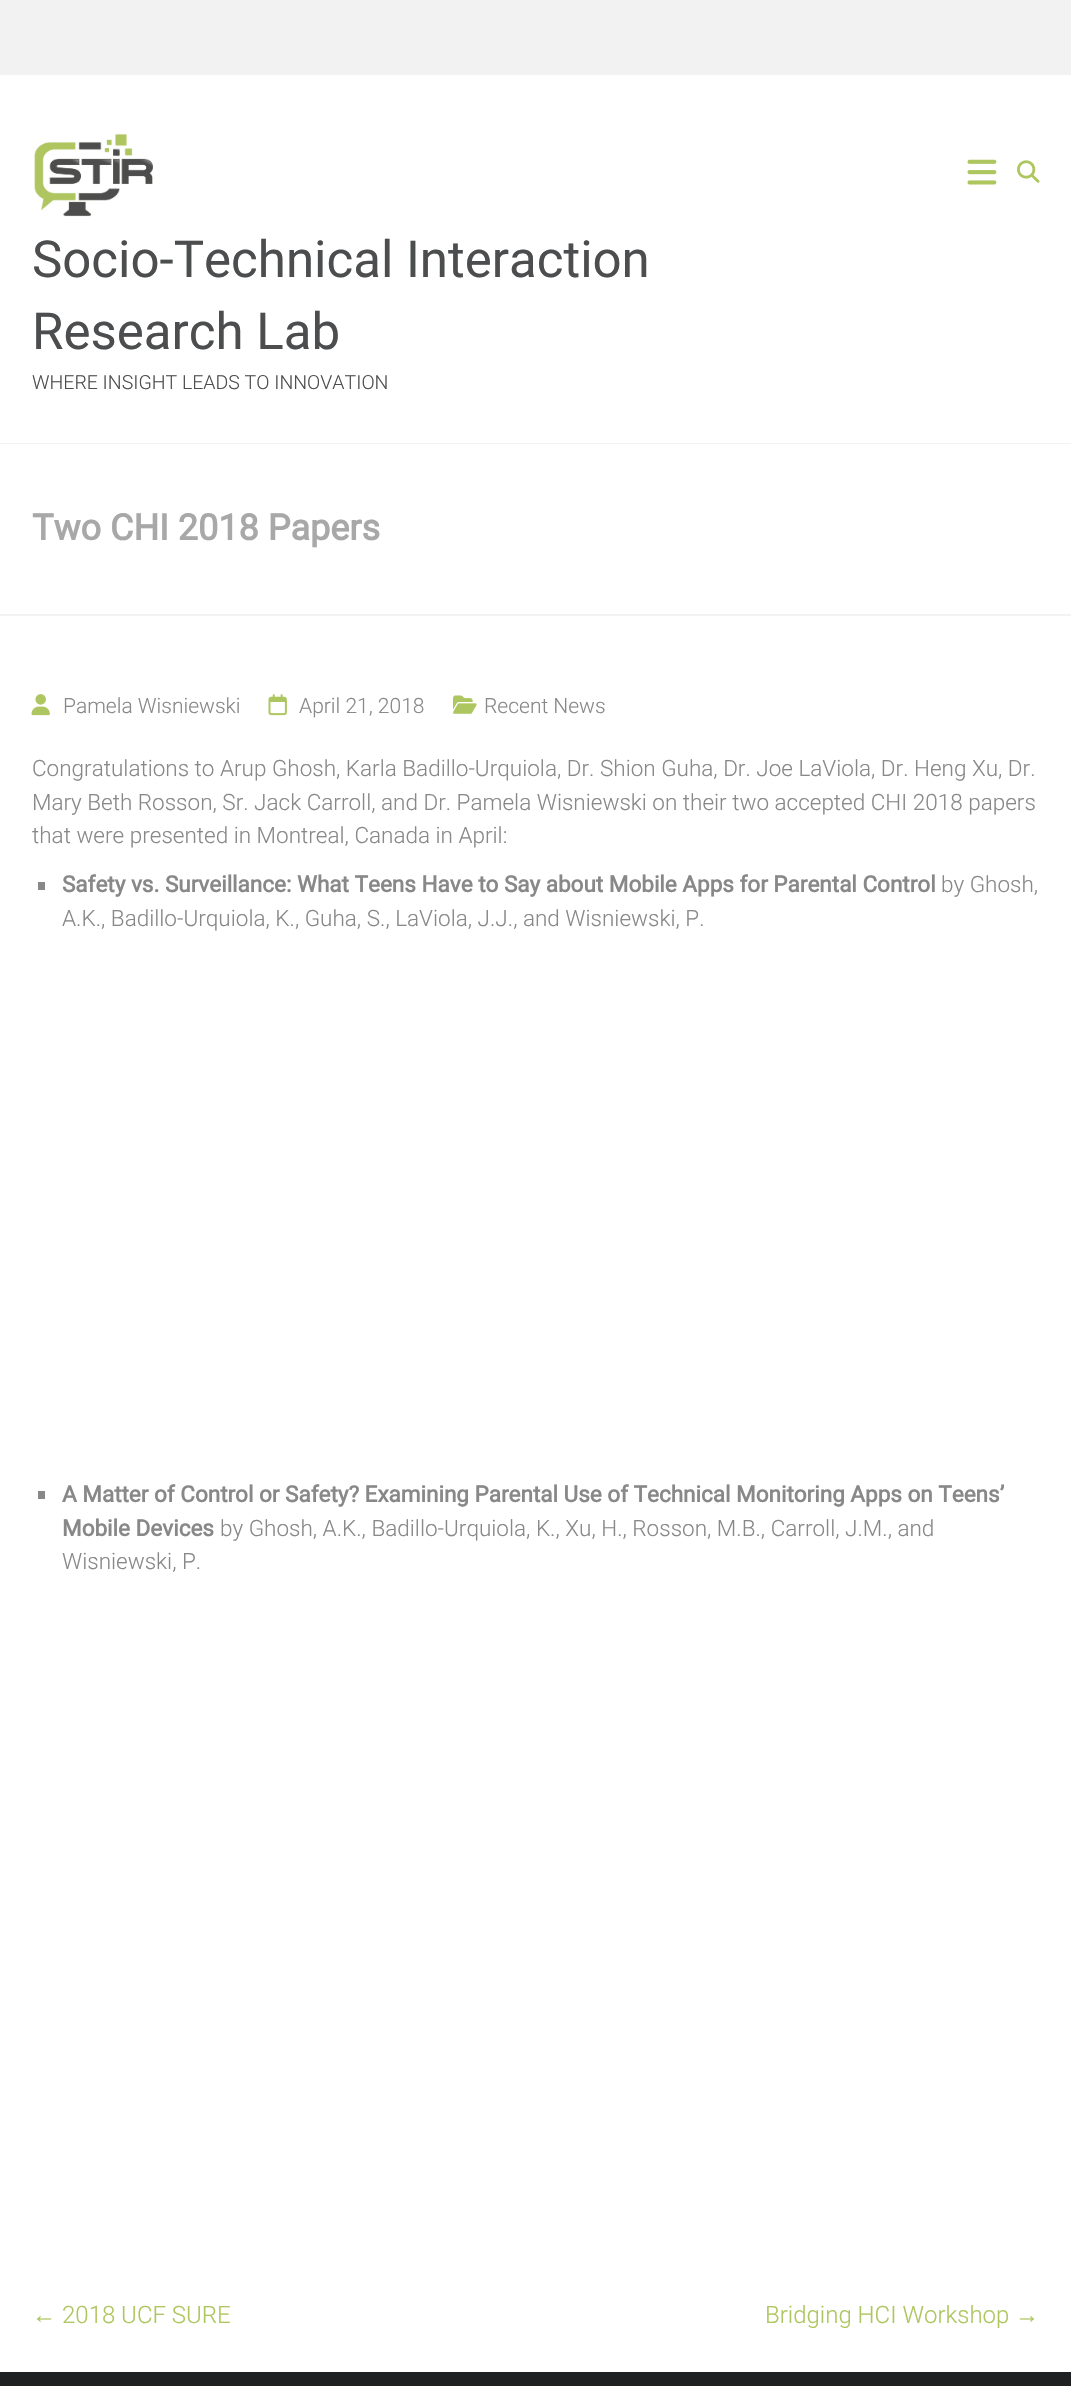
#include "include/core/SkBlurTypes.h"
#include "include/core/SkCanvas.h"
#include "include/core/SkData.h"
#include "include/core/SkFont.h"
#include "include/core/SkFontMgr.h"
#include "include/core/SkImage.h"
#include "include/core/SkMaskFilter.h"
#include "include/core/SkPaint.h"
#include "include/core/SkPathBuilder.h"
#include "include/core/SkTextBlob.h"
#include "include/effects/SkDashPathEffect.h"
#include "include/effects/SkGradientShader.h"
#include "include/utils/SkParsePath.h"

extern sk_sp<SkFontMgr> fontMgr;

void draw(SkCanvas* canvas) {
    SkPaint p;
    p.setAntiAlias(true);
    auto font = [&](const char* family, int weight, float size, bool italic = false) {
        SkFontStyle style(weight, SkFontStyle::kNormal_Width,
            italic ? SkFontStyle::kItalic_Slant : SkFontStyle::kUpright_Slant);
        SkFont result(fontMgr->matchFamilyStyle(family, style), size);
        result.setSubpixel(true);
        return result;
    };
    auto drawPhoto = [&](const char* path, float l, float t, float r, float b) {
        auto image = SkImages::DeferredFromEncodedData(SkData::MakeFromFileName(path));
        canvas->drawImageRect(image, SkRect::MakeLTRB(l, t, r, b), SkSamplingOptions());
    };
    canvas->clear(0xFFF2F2F2);
    p.setColor(0xFFFFFFFF);
    canvas->drawRect(SkRect::MakeLTRB(0, 75, 1071, 2372), p);
    p.setColor(0xFFF2F2F2);
    canvas->drawRect(SkRect::MakeLTRB(0, 443, 1071, 444), p);
    drawPhoto("media/1.png", 967, 159, 997, 185);
    drawPhoto("media/2.png", 1017, 160, 1040, 183);
    drawPhoto("media/3.png", 34, 133, 153, 217);
    auto font1 = font("Roboto", 400, 51);
    p.setColor(0xFF4C4D4E);
    canvas->drawString("Socio-Technical Interaction", 32, 277, font1, p);
    canvas->drawString("Research Lab", 32, 349, font1, p);
    auto font2 = font("Roboto", 300, 19.5f);
    canvas->drawString("WHERE INSIGHT LEADS TO INNOVATION", 32, 389, font2, p);
    p.setColor(0xFFF2F2F2);
    canvas->drawRect(SkRect::MakeLTRB(0, 614, 1071, 616), p);
    auto font3 = font("Roboto", 700, 36);
    p.setColor(0xFFA8A8A8);
    canvas->drawString("Two CHI 2018 Papers", 32, 540, font3, p);
    drawPhoto("media/4.png", 31, 694, 50, 716);
    auto font4 = font("Roboto", 300, 21);
    p.setColor(0xFF888888);
    canvas->drawString("Pamela Wisniewski", 63, 713, font4, p);
    drawPhoto("media/5.png", 268, 694, 287, 716);
    canvas->drawString("April 21, 2018", 299, 713, font4, p);
    drawPhoto("media/6.png", 453, 695, 477, 714);
    canvas->drawString("Recent News", 484, 713, font4, p);
    auto font5 = font("Roboto", 300, 22.5f);
    {
        const struct { const char* s; float x, y; } items[] = {
            {"Congratulations to Arup Ghosh, Karla Badillo-Urquiola, Dr. Shion Guha, Dr. Joe LaViola, Dr. Heng Xu, Dr.", 32, 776},
            {"Mary Beth Rosson, Sr. Jack Carroll, and Dr. Pamela Wisniewski on their two accepted CHI 2018 papers", 32, 810},
            {"that were presented in Montreal, Canada in April:", 32, 843},
        };
        for (auto [s, x, y] : items) {
            canvas->drawString(s, x, y, font5, p);
        }
    }
    canvas->drawRect(SkRect::MakeLTRB(38, 882, 45, 890), p);
    auto font6 = font("Roboto", 700, 22.5f);
    canvas->drawString("Safety vs. Surveillance: What Teens Have to Say about Mobile Apps for Parental Control", 62, 892, font6, p);
    canvas->drawString("by Ghosh,", 941, 892, font5, p);
    canvas->drawString("A.K., Badillo-Urquiola, K., Guha, S., LaViola, J.J., and Wisniewski, P.", 62, 926, font5, p);
    canvas->drawRect(SkRect::MakeLTRB(38, 1491, 45, 1499), p);
    canvas->drawString("A Matter of Control or Safety? Examining Parental Use of Technical Monitoring Apps on Teens’", 62, 1502, font6, p);
    canvas->drawString("Mobile Devices", 62, 1536, font6, p);
    canvas->drawString("by Ghosh, A.K., Badillo-Urquiola, K., Xu, H., Rosson, M.B., Carroll, J.M., and", 220, 1536, font5, p);
    canvas->drawString("Wisniewski, P.", 62, 1569, font5, p);
    auto font7 = font("Liberation Sans", 400, 24);
    p.setColor(0xFFAEC65F);
    canvas->drawString("←", 32, 2323, font7, p);
    auto font8 = font("Roboto", 300, 24);
    canvas->drawString("2018 UCF SURE", 62, 2323, font8, p);
    canvas->drawString("Bridging HCI Workshop", 765, 2323, font8, p);
    canvas->drawString("→", 1015, 2323, font7, p);
    p.setColor(0xFF1F2021);
    canvas->drawRect(SkRect::MakeLTRB(0, 2372, 1071, 2386), p);
}
